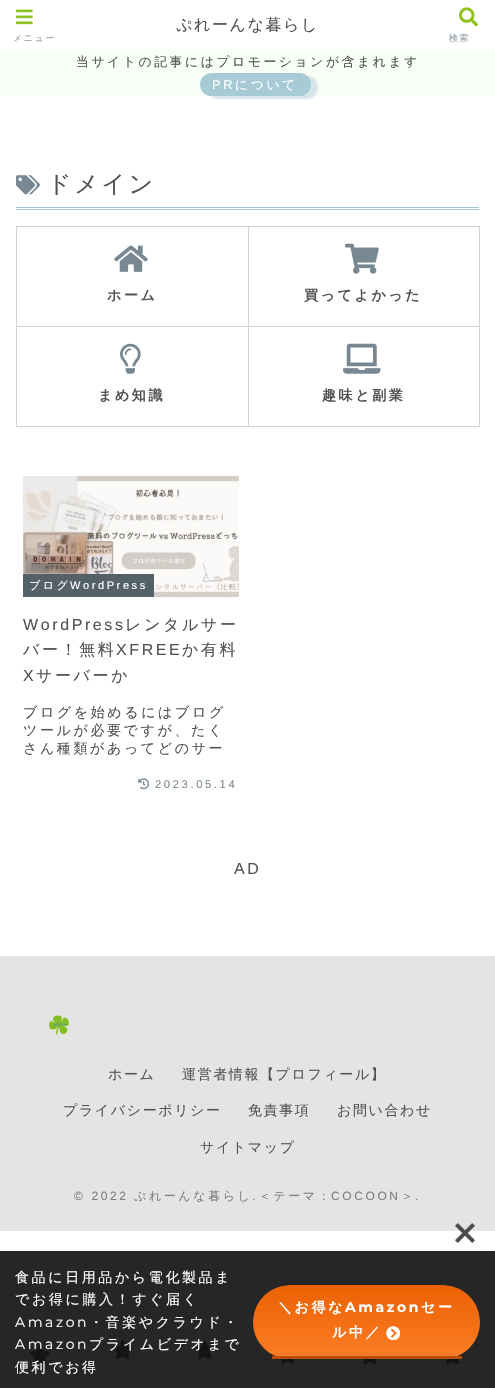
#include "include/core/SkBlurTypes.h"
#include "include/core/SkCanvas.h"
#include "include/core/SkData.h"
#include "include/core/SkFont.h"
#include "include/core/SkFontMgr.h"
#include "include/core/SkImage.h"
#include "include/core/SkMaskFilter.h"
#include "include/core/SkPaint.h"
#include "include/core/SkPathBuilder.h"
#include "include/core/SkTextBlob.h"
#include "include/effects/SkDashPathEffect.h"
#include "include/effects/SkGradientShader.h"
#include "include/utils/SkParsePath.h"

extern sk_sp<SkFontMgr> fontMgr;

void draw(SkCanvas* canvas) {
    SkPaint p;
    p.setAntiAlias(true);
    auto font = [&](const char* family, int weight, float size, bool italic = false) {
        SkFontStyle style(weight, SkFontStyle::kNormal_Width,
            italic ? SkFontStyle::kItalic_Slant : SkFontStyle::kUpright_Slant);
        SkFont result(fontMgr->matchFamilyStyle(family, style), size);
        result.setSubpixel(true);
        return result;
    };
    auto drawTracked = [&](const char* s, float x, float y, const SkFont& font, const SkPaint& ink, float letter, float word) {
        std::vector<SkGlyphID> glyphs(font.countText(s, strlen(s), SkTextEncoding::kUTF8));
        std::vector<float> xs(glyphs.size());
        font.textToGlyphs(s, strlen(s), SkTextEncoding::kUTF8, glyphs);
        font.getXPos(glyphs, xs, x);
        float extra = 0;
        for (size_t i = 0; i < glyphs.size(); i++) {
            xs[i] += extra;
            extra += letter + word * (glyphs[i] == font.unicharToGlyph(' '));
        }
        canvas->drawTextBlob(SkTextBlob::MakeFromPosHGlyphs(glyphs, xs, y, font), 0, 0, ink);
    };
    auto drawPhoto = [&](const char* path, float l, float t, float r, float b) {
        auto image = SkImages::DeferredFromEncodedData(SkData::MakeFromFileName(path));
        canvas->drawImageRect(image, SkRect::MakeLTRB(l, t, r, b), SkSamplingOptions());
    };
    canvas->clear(0xFFFFFFFF);
    p.setColor(0xFF262626);
    canvas->drawRect(SkRect::MakeLTRB(0, 1251, 495, 1388), p);
    auto font1 = font("WenQuanYi Zen Hei", 500, 16);
    p.setColor(0xFF535252);
    drawTracked("ぷれーんな暮らし", 176, 30, font1, p, 1.6f, 0);
    drawPhoto("media/1.png", 16, 9, 33, 25);
    auto font2 = font("WenQuanYi Zen Hei", 500, 9);
    p.setColor(0xFF92A0A9);
    drawTracked("メニュー", 13, 41, font2, p, 1.6f, 0);
    drawPhoto("media/2.png", 459, 7, 478, 27);
    drawTracked("検索", 449, 41, font2, p, 1.6f, 0);
    p.setColor(0xFFF9FFF7);
    canvas->drawRect(SkRect::MakeLTRB(0, 50, 495, 96), p);
    auto font3 = font("WenQuanYi Zen Hei", 500, 12.8f);
    p.setColor(0xFF535252);
    drawTracked("当サイトの記事にはプロモーションが含まれます", 76, 66, font3, p, 2.6f, 0);
    p.setColor(0xFFD7E4EA);
    p.setMaskFilter(SkMaskFilter::MakeBlur(kNormal_SkBlurStyle, 1));
    canvas->drawRoundRect(SkRect::MakeLTRB(207, 76, 318, 99), 11.5f, 11.5f, p);
    p.setMaskFilter(nullptr);
    p.setColor(0xFFA6CBD5);
    canvas->drawRoundRect(SkRect::MakeLTRB(200, 73, 311, 96), 11.5f, 11.5f, p);
    auto font4 = font("Liberation Sans", 400, 12.8f);
    p.setColor(0xFFFFFFFF);
    drawTracked("PR", 212, 89, font4, p, 2.6f, 0);
    drawTracked("について", 235, 89, font3, p, 2.6f, 0);
    p.setColor(0xFFAAC2D2);
    canvas->drawRect(SkRect::MakeLTRB(16, 207, 479, 208), p);
    canvas->drawRect(SkRect::MakeLTRB(16, 209, 479, 210), p);
    drawPhoto("media/3.png", 16, 175, 40, 195);
    auto font5 = font("WenQuanYi Zen Hei", 500, 24);
    p.setColor(0xFF535252);
    drawTracked("ドメイン", 47, 192, font5, p, 2.6f, 0);
    canvas->save();
    canvas->clipRect(SkRect::MakeLTRB(16, 226, 248, 326));
    p.setColor(0xFFD2D2D1);
    canvas->drawPath(SkPathBuilder(SkPathFillType::kEvenOdd).moveTo(-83, 127).lineTo(347, 127).lineTo(347, 425).lineTo(-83, 425).close().moveTo(17, 227).lineTo(249, 227).lineTo(249, 327).lineTo(17, 327).close().detach(), p);
    canvas->restore();
    drawPhoto("media/4.png", 114, 245, 148, 272);
    auto font6 = font("WenQuanYi Zen Hei", 700, 14);
    p.setColor(0xFF535252);
    drawTracked("ホーム", 107, 300, font6, p, 2.6f, 0);
    p.setColor(0xFFD2D2D1);
    canvas->drawRect(SkRect::MakeLTRB(479, 226, 480, 227), p);
    canvas->drawPath(SkPathBuilder().moveTo(249, 326).lineTo(249, 327).lineTo(480, 327).lineTo(480, 227).lineTo(479, 227).lineTo(479, 326).close().detach(), p);
    canvas->save();
    canvas->clipRect(SkRect::MakeLTRB(248, 226, 479, 326));
    canvas->drawPath(SkPathBuilder(SkPathFillType::kEvenOdd).moveTo(149, 127).lineTo(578, 127).lineTo(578, 425).lineTo(149, 425).close().moveTo(249, 227).lineTo(480, 227).lineTo(480, 327).lineTo(249, 327).close().detach(), p);
    canvas->restore();
    drawPhoto("media/5.png", 345, 243, 379, 274);
    p.setColor(0xFF535252);
    drawTracked("買ってよかった", 304, 300, font6, p, 2.6f, 0);
    p.setColor(0xFFD2D2D1);
    canvas->drawRect(SkRect::MakeLTRB(16, 426, 17, 427), p);
    canvas->drawPath(SkPathBuilder().moveTo(17, 426).lineTo(17, 427).lineTo(249, 427).lineTo(249, 327).lineTo(248, 327).lineTo(248, 426).close().detach(), p);
    canvas->save();
    canvas->clipRect(SkRect::MakeLTRB(16, 326, 248, 426));
    canvas->drawPath(SkPathBuilder(SkPathFillType::kEvenOdd).moveTo(-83, 227).lineTo(347, 227).lineTo(347, 525).lineTo(-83, 525).close().moveTo(17, 327).lineTo(249, 327).lineTo(249, 427).lineTo(17, 427).close().detach(), p);
    canvas->restore();
    drawPhoto("media/6.png", 120, 343, 141, 374);
    p.setColor(0xFF535252);
    drawTracked("まめ知識", 98, 400, font6, p, 2.6f, 0);
    p.setColor(0xFFD2D2D1);
    canvas->drawPath(SkPathBuilder().moveTo(249, 426).lineTo(249, 427).lineTo(480, 427).lineTo(480, 327).lineTo(479, 327).lineTo(479, 426).close().detach(), p);
    canvas->save();
    canvas->clipRect(SkRect::MakeLTRB(248, 326, 479, 426));
    canvas->drawPath(SkPathBuilder(SkPathFillType::kEvenOdd).moveTo(149, 227).lineTo(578, 227).lineTo(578, 525).lineTo(149, 525).close().moveTo(249, 327).lineTo(480, 327).lineTo(480, 427).lineTo(249, 427).close().detach(), p);
    canvas->restore();
    drawPhoto("media/7.png", 343, 343, 381, 374);
    p.setColor(0xFF535252);
    drawTracked("趣味と副業", 322, 400, font6, p, 2.6f, 0);
    drawPhoto("media/8.png", 23, 476, 239, 597);
    p.setColor(0xFF556169);
    canvas->drawRect(SkRect::MakeLTRB(23, 574, 154, 597), p);
    auto font7 = font("WenQuanYi Zen Hei", 500, 11);
    p.setColor(0xFFFFFFFF);
    drawTracked("ブログ", 29, 589, font7, p, 2.6f, 0);
    auto font8 = font("Liberation Sans", 400, 11);
    drawTracked("WordPress", 70, 589, font8, p, 2.6f, 0);
    auto font9 = font("Liberation Sans", 400, 16);
    p.setColor(0xFF535252);
    drawTracked("WordPress", 23, 630, font9, p, 2.6f, 0);
    drawTracked("レンタルサー", 125, 630, font1, p, 2.6f, 0);
    drawTracked("バー！無料", 23, 655, font1, p, 2.6f, 0);
    drawTracked("XFREE", 116, 655, font9, p, 2.6f, 0);
    drawTracked("か有料", 182, 655, font1, p, 2.6f, 0);
    drawTracked("X", 23, 681, font9, p, 2.6f, 0);
    drawTracked("サーバーか", 36, 681, font1, p, 2.6f, 0);
    auto font10 = font("WenQuanYi Zen Hei", 500, 14);
    {
        const struct { const char* s; float x, y; } items[] = {
            {"ブログを始めるにはブログ", 23, 717},
            {"ツールが必要ですが、たく", 23, 735},
            {"さん種類があってどのサー", 23, 753},
        };
        for (auto [s, x, y] : items) {
            drawTracked(s, x, y, font10, p, 2.6f, 0);
        }
    }
    drawPhoto("media/9.png", 138, 778, 149, 790);
    auto font11 = font("Liberation Sans", 400, 11.25f);
    p.setColor(0xFF778893);
    drawTracked("2023.05.14", 155, 788, font11, p, 2.6f, 0);
    p.setColor(0xFF535252);
    drawTracked("AD", 234, 874, font9, p, 2.6f, 0);
    p.setColor(0xFFE4E4E3);
    canvas->drawRect(SkRect::MakeLTRB(0, 956, 495, 1231), p);
    drawPhoto("media/10.png", 49, 1015, 69, 1035);
    p.setColor(0xFF535252);
    {
        const struct { const char* s; float x, y; } items[] = {
            {"ホーム", 108, 1079},
            {"運営者情報【プロフィール】", 182, 1079},
            {"プライバシーポリシー", 63, 1115},
            {"免責事項", 248, 1115},
            {"お問い合わせ", 337, 1115},
            {"サイトマップ", 200, 1152},
        };
        for (auto [s, x, y] : items) {
            drawTracked(s, x, y, font10, p, 1.6f, 0);
        }
    }
    auto font12 = font("Liberation Sans", 400, 12);
    p.setColor(0xFF7F7E7E);
    drawTracked("© 2022", 74, 1200, font12, p, 2.6f, 0);
    auto font13 = font("WenQuanYi Zen Hei", 500, 12);
    drawTracked("ぷれーんな暮らし ＜テーマ：", 134, 1200, font13, p, 2.6f, 0);
    drawTracked("COCOON", 331, 1200, font12, p, 2.6f, 0);
    drawTracked("＞", 401, 1200, font13, p, 2.6f, 0);
    drawTracked(".", 252, 1200, font12, p, 2.6f, 0);
    drawTracked(".", 415, 1200, font12, p, 2.6f, 0);
    drawPhoto("media/11.png", 455, 1223, 475, 1243);
    p.setColor(0xFFFFFFFF);
    drawTracked("食品に日用品から電化製品ま", 15, 1282, font10, p, 2.6f, 0);
    drawTracked("でお得に購入！すぐ届く", 15, 1304, font10, p, 2.6f, 0);
    auto font14 = font("Montserrat", 400, 14);
    drawTracked("Amazon", 15, 1327, font14, p, 2.6f, 0);
    drawTracked("・音楽やクラウド・", 89, 1327, font10, p, 2.6f, 0);
    drawPhoto("media/13.png", 29, 1345, 50, 1365);
    drawTracked("Amazon", 15, 1349, font14, p, 2.6f, 0);
    drawPhoto("media/13.png", 112, 1340, 133, 1360);
    drawPhoto("media/13.png", 194, 1340, 215, 1360);
    drawTracked("プライムビデオまで", 89, 1349, font10, p, 2.6f, 0);
    drawTracked("便利でお得", 15, 1372, font10, p, 2.6f, 0);
    drawPhoto("media/15.png", 446, 1353, 463, 1365);
    canvas->save();
    canvas->clipPath(SkPathBuilder().moveTo(290, 1285).lineTo(443, 1285).cubicTo(463.5f, 1285, 480, 1301.5f, 480, 1322).cubicTo(480, 1342.5f, 463.5f, 1359, 443, 1359).lineTo(290, 1359).cubicTo(269.5f, 1359, 253, 1342.5f, 253, 1322).cubicTo(253, 1301.5f, 269.5f, 1285, 290, 1285).close().detach(), true);
    {
        const SkColor colors[] = {0xFFEA6103, 0xFFFC7C24};
        const float stops[] = {0, 1};
        const SkPoint ends[] = {{367, 1285}, {367, 1356}};
        p.setShader(SkGradientShader::MakeLinear(ends, colors, stops, 2, SkTileMode::kClamp));
        p.setAlpha(255);
    }
    canvas->drawPath(SkPathBuilder().moveTo(290, 1285).lineTo(443, 1285).cubicTo(463.5f, 1285, 480, 1301.5f, 480, 1322).lineTo(480, 1356).lineTo(253, 1356).lineTo(253, 1322).cubicTo(253, 1301.5f, 269.5f, 1285, 290, 1285).close().detach(), p);
    canvas->restore();
    p.setShader(nullptr);
    p.setColor(0xFFB84C02);
    canvas->drawRect(SkRect::MakeLTRB(272, 1356, 462, 1359), p);
    p.setColor(0xFFFFFFFF);
    drawTracked("＼お得な", 278, 1312, font6, p, 2.6f, 0);
    auto font15 = font("Montserrat", 700, 14);
    drawTracked("Amazon", 345, 1312, font15, p, 2.6f, 0);
    drawTracked("セー", 421, 1312, font6, p, 2.6f, 0);
    drawTracked("ル中／", 332, 1337, font6, p, 2.6f, 0);
    drawPhoto("media/12.png", 386, 1326, 400, 1340);
    drawPhoto("media/14.png", 281, 1359, 295, 1365);
    drawPhoto("media/14.png", 363, 1359, 377, 1365);
}
